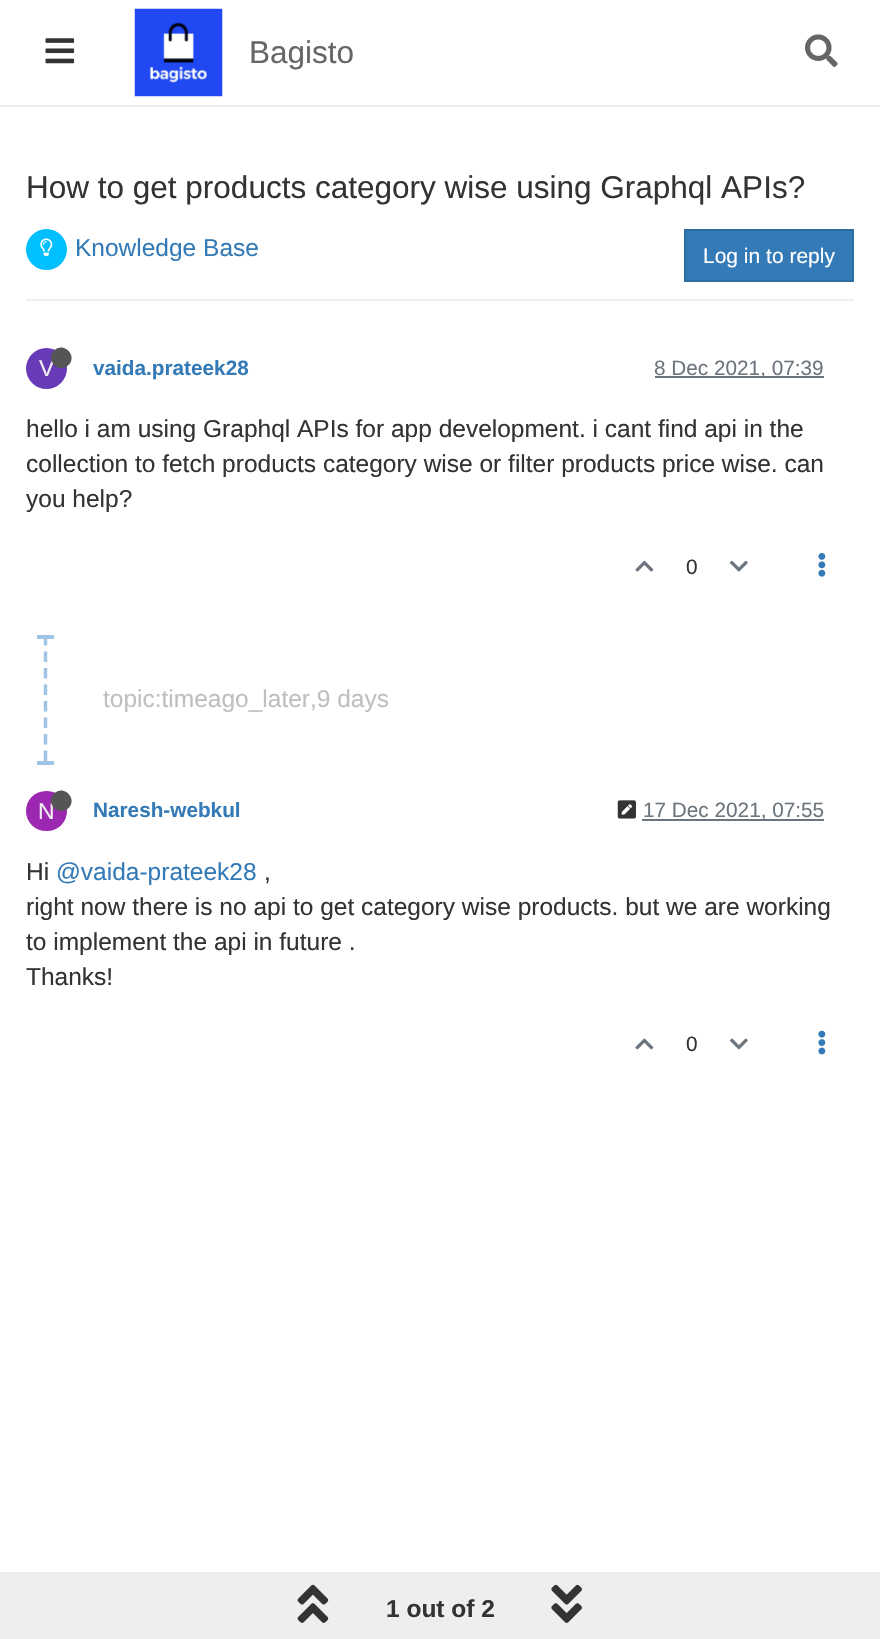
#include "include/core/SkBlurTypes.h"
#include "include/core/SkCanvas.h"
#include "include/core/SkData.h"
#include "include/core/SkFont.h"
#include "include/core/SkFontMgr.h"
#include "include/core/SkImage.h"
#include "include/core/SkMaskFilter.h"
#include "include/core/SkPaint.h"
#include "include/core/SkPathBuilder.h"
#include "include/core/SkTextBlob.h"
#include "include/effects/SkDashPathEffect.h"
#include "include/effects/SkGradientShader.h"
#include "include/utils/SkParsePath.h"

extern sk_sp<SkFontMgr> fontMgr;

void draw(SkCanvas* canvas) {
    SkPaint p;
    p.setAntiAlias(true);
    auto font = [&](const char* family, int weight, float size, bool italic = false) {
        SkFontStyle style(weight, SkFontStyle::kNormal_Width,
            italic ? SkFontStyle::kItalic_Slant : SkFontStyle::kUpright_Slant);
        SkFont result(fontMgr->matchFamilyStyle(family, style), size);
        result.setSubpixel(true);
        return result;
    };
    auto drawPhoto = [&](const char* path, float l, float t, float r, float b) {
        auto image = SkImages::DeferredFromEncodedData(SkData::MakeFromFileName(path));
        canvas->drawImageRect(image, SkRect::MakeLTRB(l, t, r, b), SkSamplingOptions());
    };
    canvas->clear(0xFFFFFFFF);
    p.setColor(0xFFEEEEEE);
    canvas->drawRect(SkRect::MakeLTRB(0, 105, 880, 107), p);
    drawPhoto("media/1.png", 45, 38, 75, 64);
    drawPhoto("media/2.png", 134, 8, 223, 97);
    auto font1 = font("Liberation Sans", 400, 31.5f);
    p.setColor(0xFF666666);
    canvas->drawString("Bagisto", 249, 63, font1, p);
    drawPhoto("media/3.png", 805, 34, 838, 68);
    p.setColor(0xFF333333);
    canvas->drawString("How to get products category wise using Graphql APIs?", 26, 198, font1, p);
    p.setColor(0xFFEEEEEE);
    canvas->drawRect(SkRect::MakeLTRB(26, 299, 854, 301), p);
    p.setColor(0xFF00BFFF);
    canvas->drawCircle(46.5f, 249.5f, 20.5f, p);
    drawPhoto("media/4.png", 40, 238, 53, 256);
    auto font2 = font("Liberation Sans", 400, 24.5f);
    p.setColor(0xFF337AB7);
    canvas->drawString("Knowledge Base", 75, 256, font2, p);
    canvas->drawRect(SkRect::MakeLTRB(685, 230, 853, 281), p);
    p.setStyle(SkPaint::kStroke_Style);
    p.setStrokeWidth(2);
    p.setColor(0xFF2E6DA4);
    canvas->drawRect(SkRect::MakeLTRB(685, 230, 853, 281), p);
    auto font3 = font("Liberation Sans", 400, 21);
    p.setStyle(SkPaint::kFill_Style);
    p.setColor(0xFFFFFFFF);
    canvas->drawString("Log in to reply", 703, 263, font3, p);
    p.setColor(0xFF673AB7);
    canvas->drawCircle(46.5f, 368.5f, 20.5f, p);
    auto font4 = font("Liberation Sans", 400, 23);
    p.setColor(0xFFEEEEEE);
    canvas->drawString("V", 39, 376, font4, p);
    p.setColor(0xFF555555);
    canvas->drawPath(SkPathBuilder().moveTo(54, 350.5f).cubicTo(63.5f, 341, 78, 355.5f, 68.5f, 365).cubicTo(59, 374.5f, 44.5f, 360, 54, 350.5f).close().detach(), p);
    auto font5 = font("Liberation Sans", 700, 20.75f);
    p.setColor(0xFF337AB7);
    canvas->drawString("vaida.prateek28", 93, 375, font5, p);
    p.setColor(0xFF6C757D);
    canvas->drawRect(SkRect::MakeLTRB(655, 376, 824, 378), p);
    auto font6 = font("Liberation Sans", 400, 20.75f);
    canvas->drawString("8 Dec 2021, 07:39", 654, 375, font6, p);
    p.setColor(0xFF333333);
    {
        const struct { const char* s; float x, y; } items[] = {
            {"hello i am using Graphql APIs for app development. i cant find api in the", 26, 437},
            {"collection to fetch products category wise or filter products price wise. can", 26, 472},
            {"you help?", 26, 507},
        };
        for (auto [s, x, y] : items) {
            canvas->drawString(s, x, y, font2, p);
        }
    }
    drawPhoto("media/5.png", 635, 560, 654, 572);
    canvas->drawString("0", 686, 574, font6, p);
    drawPhoto("media/6.png", 730, 560, 748, 572);
    drawPhoto("media/7.png", 818, 553, 826, 577);
    p.setStyle(SkPaint::kStroke_Style);
    p.setStrokeWidth(3.5f);
    p.setColor(0xFFA0C4E4);
    p.setPathEffect(SkDashPathEffect::Make({{10.5f, 6}}, 0));
    canvas->drawPath(SkPathBuilder().moveTo(45.5f, 635).lineTo(45.5f, 761).detach(), p);
    p.setPathEffect(nullptr);
    p.setStyle(SkPaint::kFill_Style);
    canvas->drawRect(SkRect::MakeLTRB(37, 635, 54, 639), p);
    p.setColor(0xFFBFBFBF);
    canvas->drawString("topic:timeago_later,9 days", 103, 707, font2, p);
    p.setColor(0xFFA0C4E4);
    canvas->drawRect(SkRect::MakeLTRB(37, 761, 54, 765), p);
    p.setColor(0xFF9C27B0);
    canvas->drawRoundRect(SkRect::MakeLTRB(26, 791, 67, 831), 20, 20, p);
    p.setColor(0xFFEEEEEE);
    canvas->drawString("N", 38, 819, font4, p);
    p.setColor(0xFF555555);
    canvas->drawPath(SkPathBuilder().moveTo(54, 793.5f).cubicTo(63.5f, 784, 78, 798.5f, 68.5f, 808).cubicTo(59, 817.5f, 44.5f, 803, 54, 793.5f).close().detach(), p);
    p.setColor(0xFF337AB7);
    canvas->drawString("Naresh-webkul", 93, 817, font5, p);
    drawPhoto("media/8.png", 617, 800, 636, 819);
    p.setColor(0xFF6C757D);
    canvas->drawRect(SkRect::MakeLTRB(642, 819, 824, 821), p);
    canvas->drawString("17 Dec 2021, 07:55", 643, 817, font6, p);
    p.setColor(0xFF333333);
    canvas->drawString("Hi", 26, 880, font2, p);
    p.setColor(0xFF337AB7);
    canvas->drawString("@vaida-prateek28", 56, 880, font2, p);
    p.setColor(0xFF333333);
    {
        const struct { const char* s; float x, y; } items[] = {
            {",", 264, 880},
            {"right now there is no api to get category wise products. but we are working", 26, 915},
            {"to implement the api in future .", 26, 950},
            {"Thanks!", 26, 985},
        };
        for (auto [s, x, y] : items) {
            canvas->drawString(s, x, y, font2, p);
        }
    }
    drawPhoto("media/9.png", 635, 1038, 654, 1050);
    canvas->drawString("0", 686, 1051, font6, p);
    drawPhoto("media/10.png", 730, 1038, 748, 1050);
    drawPhoto("media/11.png", 818, 1030, 826, 1055);
    p.setColor(0xFFEEEEEE);
    canvas->drawRect(SkRect::MakeLTRB(0, 1572, 880, 1639), p);
    drawPhoto("media/12.png", 297, 1584, 329, 1623);
    auto font7 = font("Liberation Sans", 700, 24.5f);
    p.setColor(0xFF333333);
    canvas->drawString("1 out of 2", 386, 1617, font7, p);
    drawPhoto("media/13.png", 551, 1584, 582, 1623);
}
